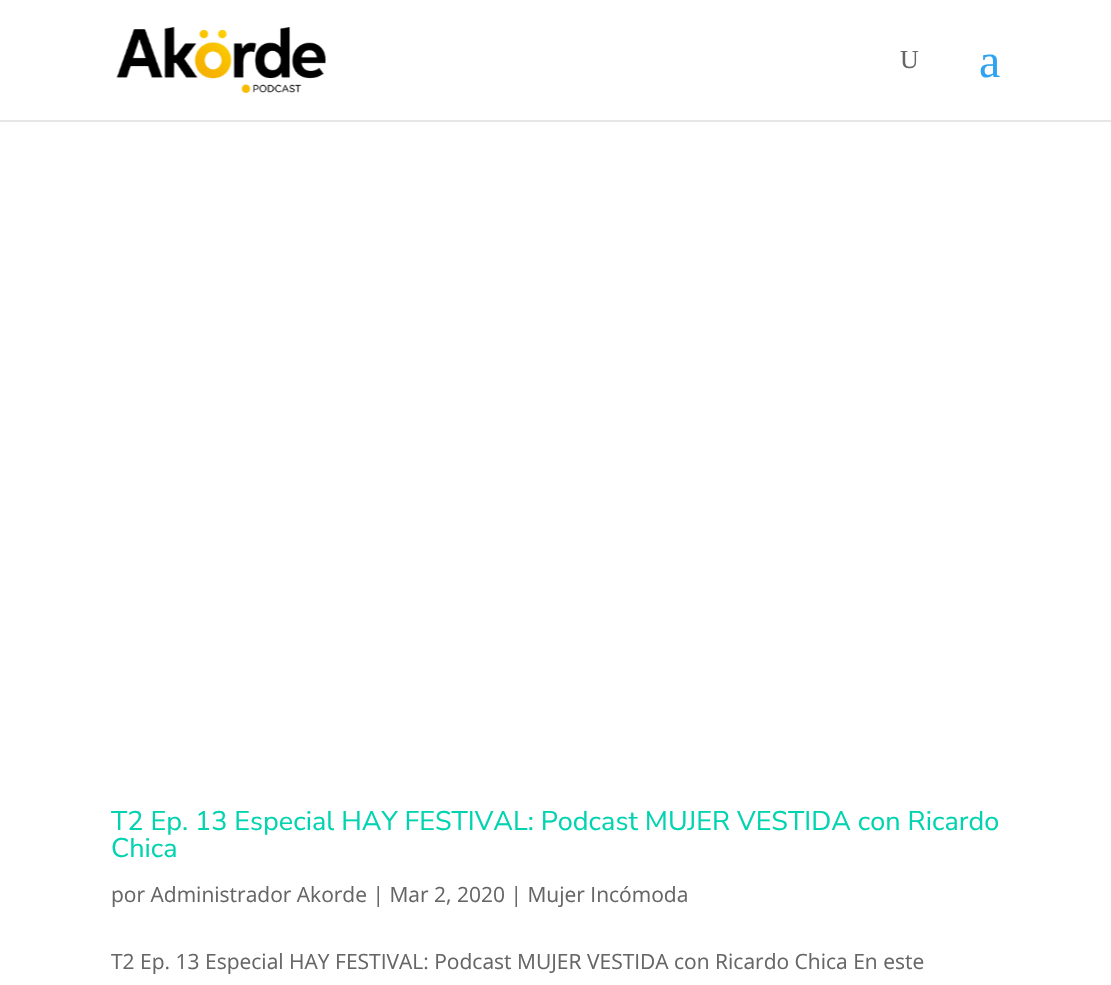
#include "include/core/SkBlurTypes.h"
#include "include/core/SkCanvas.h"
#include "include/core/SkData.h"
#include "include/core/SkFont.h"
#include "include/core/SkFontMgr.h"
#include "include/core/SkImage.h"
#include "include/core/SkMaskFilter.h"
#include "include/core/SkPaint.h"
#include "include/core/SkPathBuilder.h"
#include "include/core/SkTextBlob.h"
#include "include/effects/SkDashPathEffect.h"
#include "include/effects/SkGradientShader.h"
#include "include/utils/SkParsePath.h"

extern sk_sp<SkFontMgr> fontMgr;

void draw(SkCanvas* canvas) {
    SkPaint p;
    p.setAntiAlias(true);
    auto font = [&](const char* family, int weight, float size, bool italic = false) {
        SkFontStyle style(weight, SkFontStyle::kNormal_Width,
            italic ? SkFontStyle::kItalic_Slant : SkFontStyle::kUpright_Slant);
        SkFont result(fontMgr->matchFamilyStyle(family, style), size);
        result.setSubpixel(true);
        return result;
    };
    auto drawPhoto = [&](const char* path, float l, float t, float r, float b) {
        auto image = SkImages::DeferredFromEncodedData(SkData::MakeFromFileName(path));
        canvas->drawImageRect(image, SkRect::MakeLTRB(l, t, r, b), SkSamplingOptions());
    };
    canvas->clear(0xFFFFFFFF);
    p.setColor(0xFFE6E6E6);
    canvas->drawPath(SkPathBuilder().moveTo(0, 120).lineTo(0, 122).lineTo(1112, 122).lineTo(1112, 2).lineTo(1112, 120).close().detach(), p);
    drawPhoto("media/1.png", 116, 27, 326, 93);
    auto font1 = font("Liberation Serif", 400, 26);
    p.setColor(0xFF666666);
    canvas->drawString("U", 900, 68, font1, p);
    auto font2 = font("Liberation Serif", 400, 48);
    p.setColor(0xFF2EA3F2);
    canvas->drawString("a", 979, 77, font2, p);
    auto font3 = font("Nunito Sans", 200, 27);
    p.setColor(0xFF00D3B0);
    canvas->drawString("T2 Ep. 13 Especial HAY FESTIVAL: Podcast MUJER VESTIDA con Ricardo", 111, 830, font3, p);
    canvas->drawString("Chica", 111, 857, font3, p);
    auto font4 = font("Open Sans", 400, 21);
    p.setColor(0xFF666666);
    canvas->drawString("por Administrador Akorde | Mar 2, 2020 | Mujer Incómoda", 111, 902, font4, p);
    canvas->drawString("T2 Ep. 13 Especial HAY FESTIVAL: Podcast MUJER VESTIDA con Ricardo Chica En este", 111, 969, font4, p);
}
